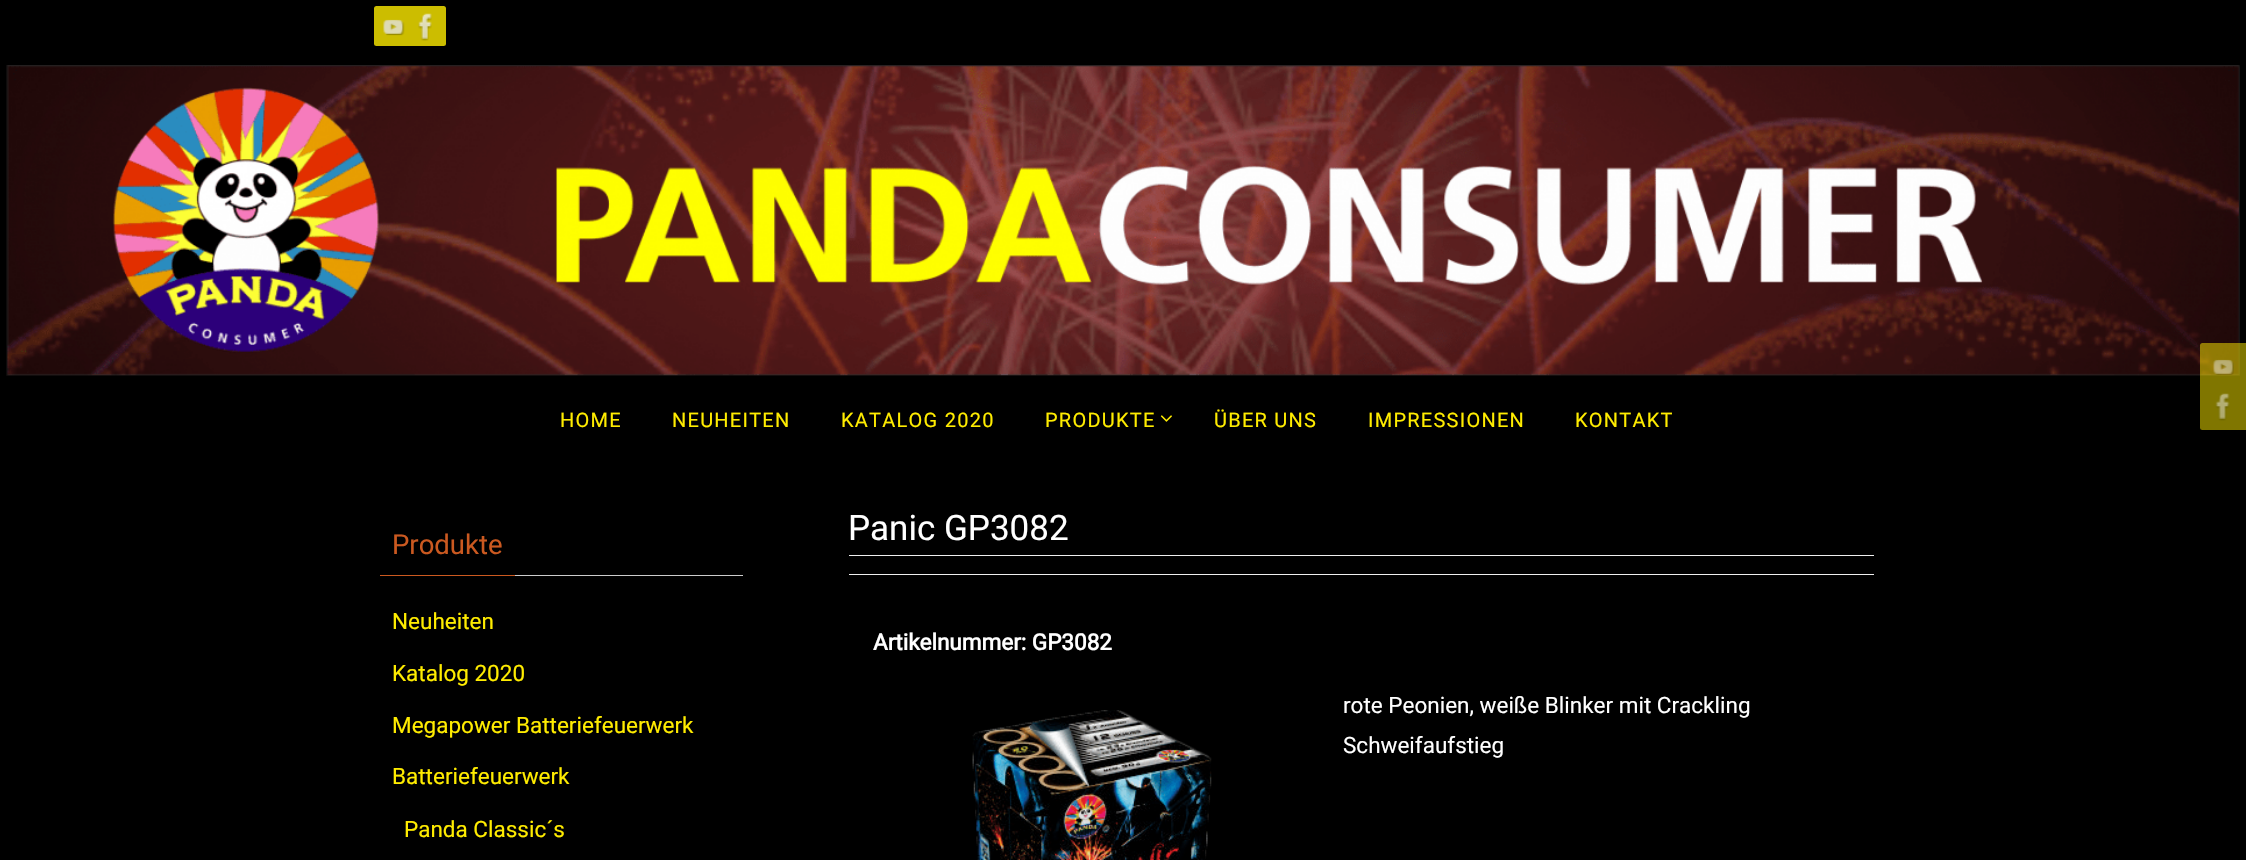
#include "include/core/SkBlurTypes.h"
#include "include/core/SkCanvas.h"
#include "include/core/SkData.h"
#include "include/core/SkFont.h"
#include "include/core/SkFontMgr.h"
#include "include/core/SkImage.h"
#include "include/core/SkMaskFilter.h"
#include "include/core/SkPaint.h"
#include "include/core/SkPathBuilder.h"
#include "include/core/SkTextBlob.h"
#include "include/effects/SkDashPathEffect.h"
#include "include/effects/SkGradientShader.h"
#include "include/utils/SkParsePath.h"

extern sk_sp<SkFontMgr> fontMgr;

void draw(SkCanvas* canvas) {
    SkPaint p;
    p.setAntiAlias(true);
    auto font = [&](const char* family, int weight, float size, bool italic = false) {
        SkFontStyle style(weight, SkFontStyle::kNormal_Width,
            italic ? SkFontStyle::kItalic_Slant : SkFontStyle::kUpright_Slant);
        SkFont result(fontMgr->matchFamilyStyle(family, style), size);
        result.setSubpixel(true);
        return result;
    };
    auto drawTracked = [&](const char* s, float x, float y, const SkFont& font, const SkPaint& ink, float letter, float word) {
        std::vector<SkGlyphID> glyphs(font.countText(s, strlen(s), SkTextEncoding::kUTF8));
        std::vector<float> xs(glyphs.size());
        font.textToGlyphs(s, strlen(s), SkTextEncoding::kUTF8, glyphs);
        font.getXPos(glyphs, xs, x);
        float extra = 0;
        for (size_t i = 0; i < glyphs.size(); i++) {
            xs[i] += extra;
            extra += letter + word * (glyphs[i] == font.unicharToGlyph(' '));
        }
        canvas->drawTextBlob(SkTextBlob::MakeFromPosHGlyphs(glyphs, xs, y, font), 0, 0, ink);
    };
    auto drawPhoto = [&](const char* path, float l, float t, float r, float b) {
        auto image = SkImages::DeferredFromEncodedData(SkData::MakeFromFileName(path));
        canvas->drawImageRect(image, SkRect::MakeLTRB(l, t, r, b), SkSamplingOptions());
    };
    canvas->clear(0xFF000000);
    p.setColor(0xFFCCBD00);
    canvas->drawRoundRect(SkRect::MakeLTRB(374, 6, 414, 46), 2.5f, 2.5f, p);
    drawPhoto("media/1.png", 383, 19, 405, 36);
    canvas->drawRoundRect(SkRect::MakeLTRB(406, 6, 446, 46), 2.5f, 2.5f, p);
    drawPhoto("media/2.png", 418, 13, 432, 41);
    drawPhoto("media/3.png", 6, 65, 2240, 376);
    auto font1 = font("Roboto", 400, 20);
    p.setColor(0xFFFFEC00);
    {
        const struct { const char* s; float x, y; } items[] = {
            {"HOME", 560, 427},
            {"NEUHEITEN", 672, 427},
            {"KATALOG 2020", 841, 427},
            {"PRODUKTE", 1045, 427},
        };
        for (auto [s, x, y] : items) {
            drawTracked(s, x, y, font1, p, 1.25f, 0);
        }
    }
    drawPhoto("media/4.png", 1160, 415, 1172, 422);
    {
        const struct { const char* s; float x, y; } items[] = {
            {"ÜBER UNS", 1214, 427},
            {"IMPRESSIONEN", 1368, 427},
            {"KONTAKT", 1575, 427},
        };
        for (auto [s, x, y] : items) {
            drawTracked(s, x, y, font1, p, 1.25f, 0);
        }
    }
    p.setColor(0x80FFEC00);
    canvas->drawRoundRect(SkRect::MakeLTRB(2200, 343, 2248, 390), 2.5f, 2.5f, p);
    drawPhoto("media/5.png", 2213, 359, 2234, 375);
    p.setColor(0xFF807600);
    canvas->drawRoundRect(SkRect::MakeLTRB(2200, 383, 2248, 430), 2.5f, 2.5f, p);
    drawPhoto("media/6.png", 2215, 393, 2230, 421);
    p.setColor(0xFFCCCCCC);
    canvas->drawRect(SkRect::MakeLTRB(515, 575, 743, 576), p);
    p.setColor(0xFFCB5920);
    canvas->drawRect(SkRect::MakeLTRB(380, 575, 515, 576), p);
    auto font2 = font("Roboto", 400, 27.5f);
    canvas->drawString("Produkte", 392, 554, font2, p);
    auto font3 = font("Roboto", 400, 22.5f);
    p.setColor(0xFFFFEC00);
    {
        const struct { const char* s; float x, y; } items[] = {
            {"Neuheiten", 392, 629},
            {"Katalog 2020", 392, 681},
            {"Megapower Batteriefeuerwerk", 392, 733},
            {"Batteriefeuerwerk", 392, 784},
            {"Panda Classic´s", 404, 837},
        };
        for (auto [s, x, y] : items) {
            canvas->drawString(s, x, y, font3, p);
        }
    }
    auto font4 = font("Roboto", 400, 35);
    p.setColor(0xFFFFFFFF);
    canvas->drawString("Panic GP3082", 848, 540, font4, p);
    p.setColor(0xFFEEEEEE);
    canvas->drawRect(SkRect::MakeLTRB(849, 555, 1874, 556), p);
    canvas->drawRect(SkRect::MakeLTRB(849, 574, 1874, 575), p);
    auto font5 = font("Roboto", 700, 22.5f);
    p.setColor(0xFFFFFFFF);
    canvas->drawString("Artikelnummer: GP3082", 873, 650, font5, p);
    canvas->drawString("rote Peonien, weiße Blinker mit Crackling", 1343, 713, font3, p);
    drawPhoto("media/7.png", 972, 710, 1212, 860);
    canvas->drawString("Schweifaufstieg", 1343, 753, font3, p);
}
